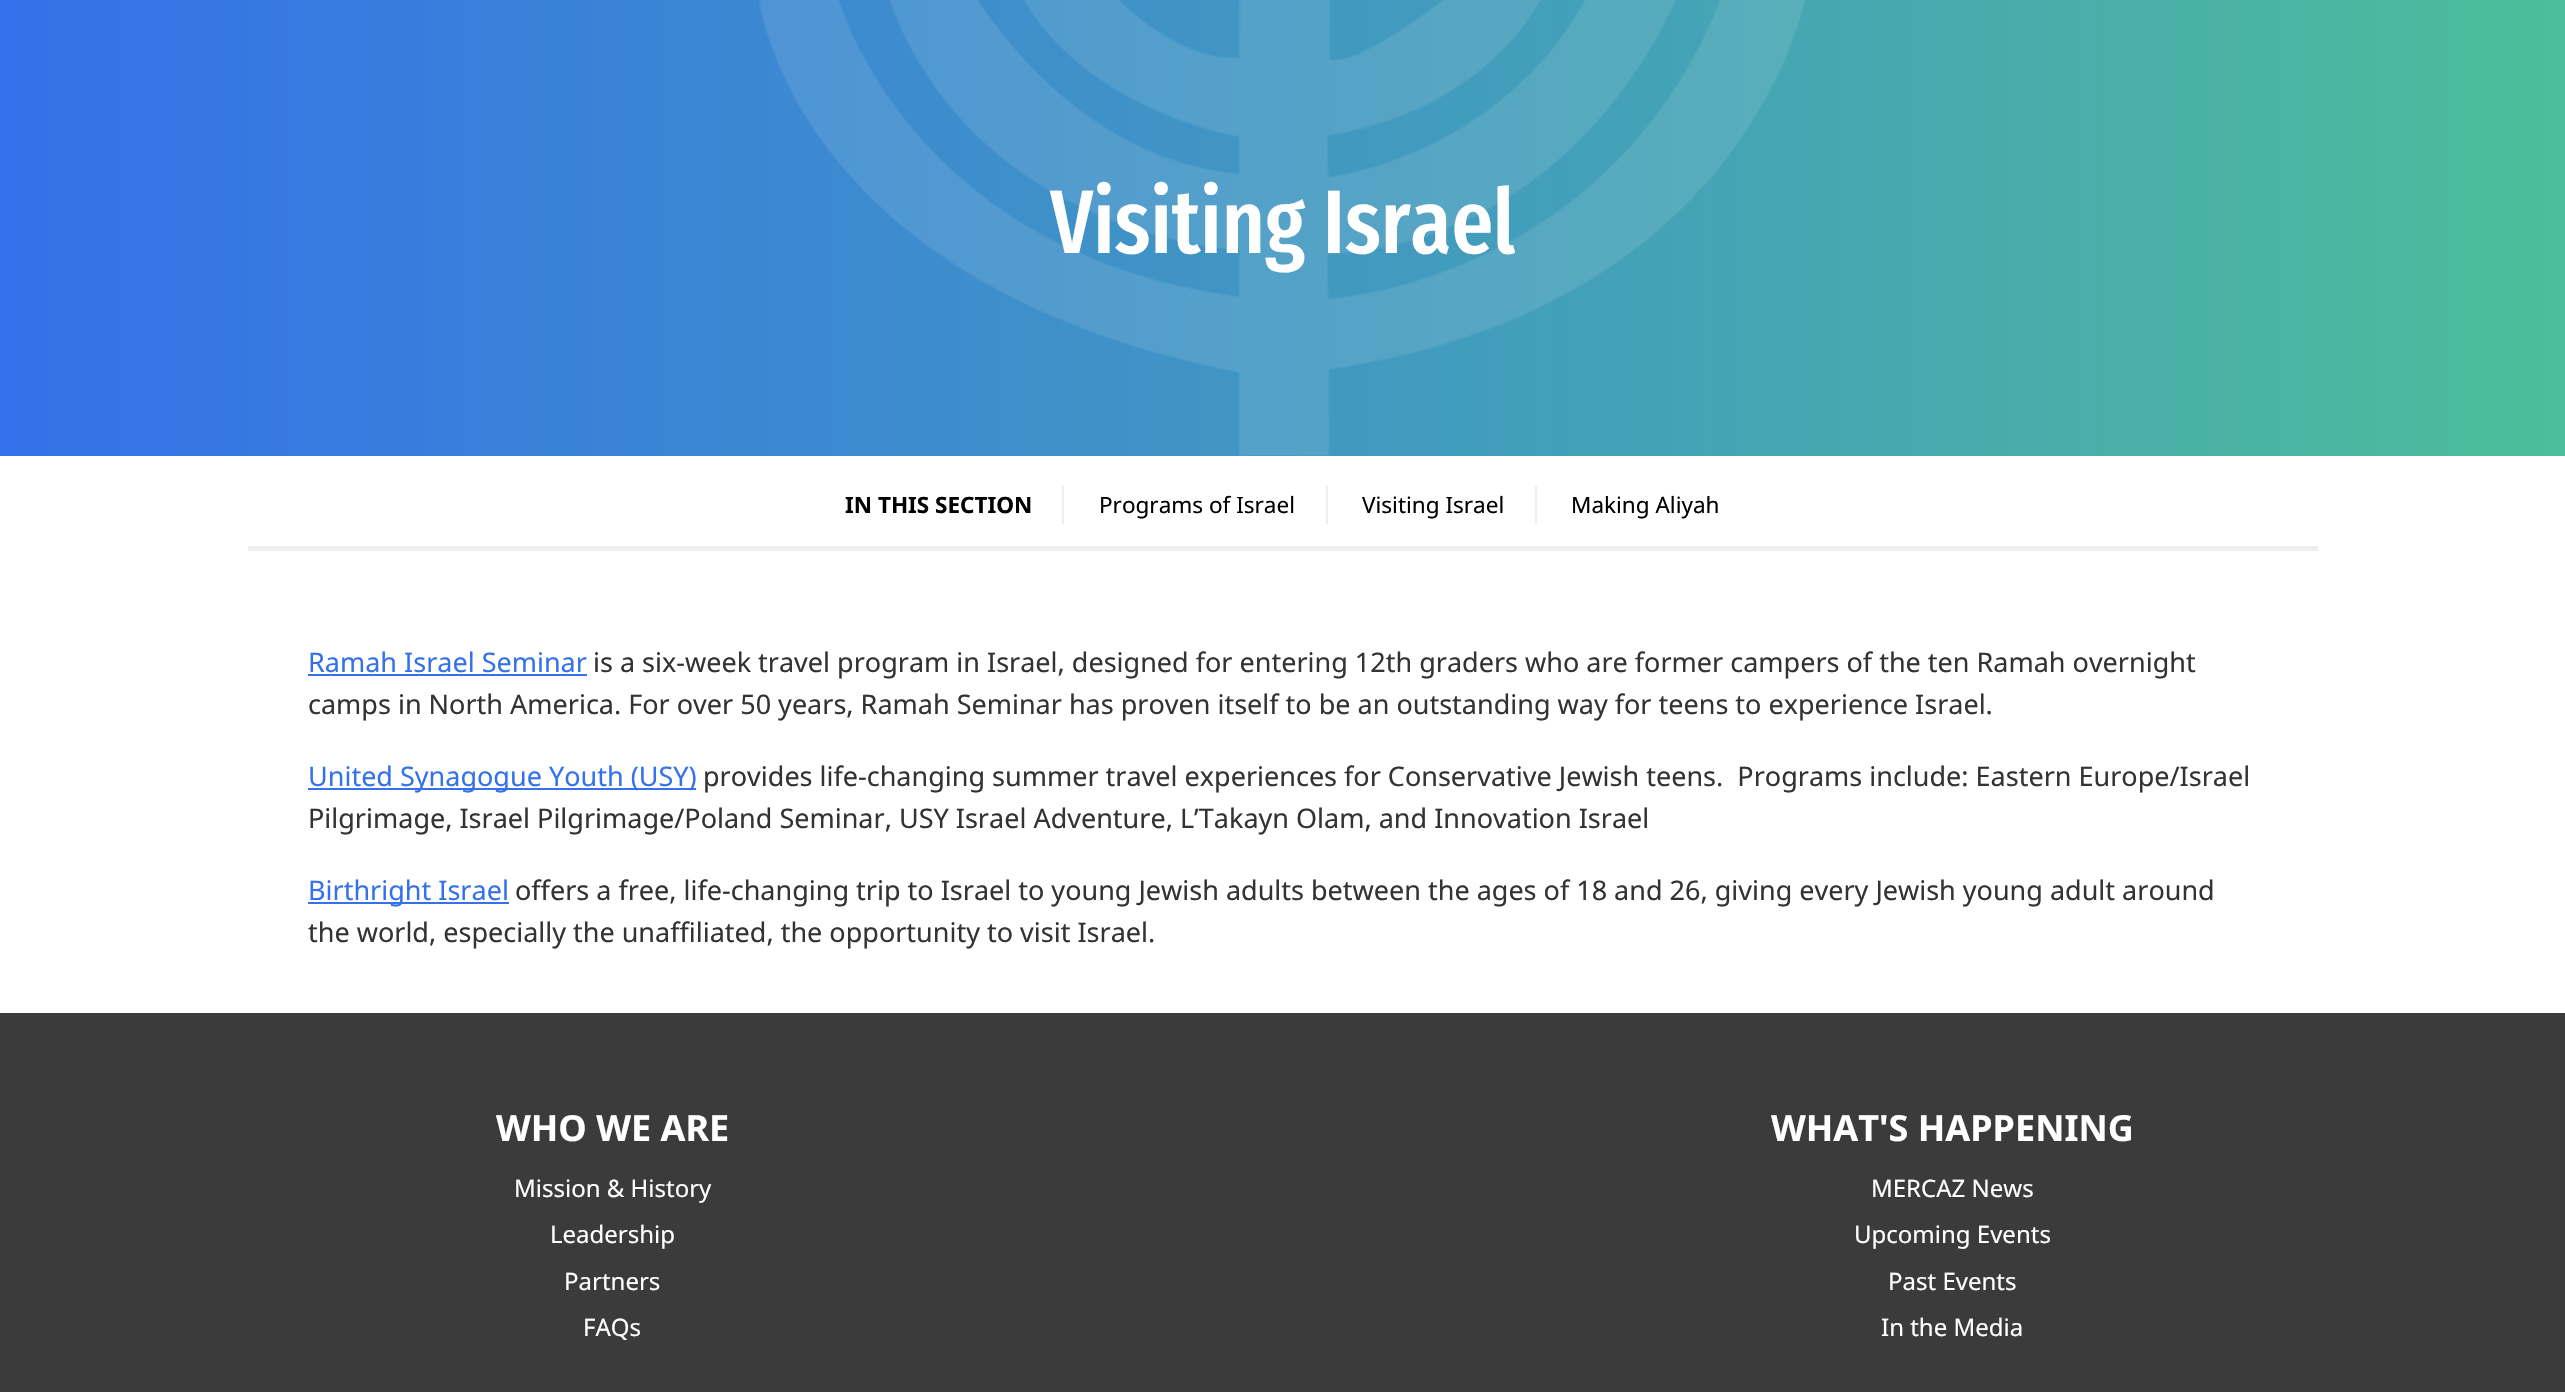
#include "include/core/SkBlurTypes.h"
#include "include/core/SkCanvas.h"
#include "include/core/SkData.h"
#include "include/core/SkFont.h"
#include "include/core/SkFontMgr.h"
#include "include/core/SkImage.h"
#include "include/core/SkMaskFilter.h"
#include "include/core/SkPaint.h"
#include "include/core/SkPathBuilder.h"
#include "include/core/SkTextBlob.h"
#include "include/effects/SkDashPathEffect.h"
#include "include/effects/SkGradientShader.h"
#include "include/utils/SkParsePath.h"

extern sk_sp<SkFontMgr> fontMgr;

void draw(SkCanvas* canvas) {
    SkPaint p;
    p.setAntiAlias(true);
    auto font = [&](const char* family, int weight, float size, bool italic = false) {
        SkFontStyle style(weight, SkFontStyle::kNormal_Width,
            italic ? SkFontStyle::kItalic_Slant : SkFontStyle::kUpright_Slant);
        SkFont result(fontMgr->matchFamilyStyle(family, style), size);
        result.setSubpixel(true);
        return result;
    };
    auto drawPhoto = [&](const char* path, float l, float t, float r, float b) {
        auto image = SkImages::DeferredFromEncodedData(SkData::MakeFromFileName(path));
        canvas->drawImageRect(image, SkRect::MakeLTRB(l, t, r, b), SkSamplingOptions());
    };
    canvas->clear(0xFF3B3B3B);
    {
        const SkColor colors[] = {0xFF3471EA, 0xFF4DBD9A};
        const float stops[] = {0, 1};
        const SkPoint ends[] = {{0, 224}, {2565, 223}};
        p.setShader(SkGradientShader::MakeLinear(ends, colors, stops, 2, SkTileMode::kClamp));
        p.setAlpha(255);
    }
    canvas->drawRect(SkRect::MakeLTRB(0, 0, 2565, 456), p);
    drawPhoto("media/1.png", 759, 0, 1806, 456);
    auto font1 = font("Fira Sans Extra Condensed", 500, 90);
    p.setShader(nullptr);
    p.setColor(0xFFFFFFFF);
    canvas->drawString("Visiting Israel", 1050, 253, font1, p);
    {
        const struct { float l, t, r, b; SkColor color; } items[] = {
            {0, 456, 2565, 1013, 0xFFFFFFFF},
            {248, 546, 2318, 551, 0xFFEEEEEE},
            {1062, 486, 1064, 524, 0xFFEEEEEE},
        };
        for (auto [l, t, r, b, color] : items) {
            p.setColor(color);
            canvas->drawRect(SkRect::MakeLTRB(l, t, r, b), p);
        }
    }
    auto font2 = font("Noto Sans", 700, 22.5f);
    p.setColor(0xFF000000);
    canvas->drawString("IN THIS SECTION", 845, 513, font2, p);
    p.setColor(0xFFEEEEEE);
    canvas->drawRect(SkRect::MakeLTRB(1326, 486, 1328, 524), p);
    auto font3 = font("Noto Sans", 400, 22.5f);
    p.setColor(0xFF000000);
    canvas->drawString("Programs of Israel", 1099, 513, font3, p);
    p.setColor(0xFFEEEEEE);
    canvas->drawRect(SkRect::MakeLTRB(1535, 486, 1537, 524), p);
    p.setColor(0xFF000000);
    canvas->drawString("Visiting Israel", 1362, 513, font3, p);
    canvas->drawString("Making Aliyah", 1571, 513, font3, p);
    auto font4 = font("Noto Sans", 400, 27);
    p.setColor(0xFF3471EA);
    canvas->drawString("Ramah Israel Seminar", 308, 672, font4, p);
    canvas->drawRect(SkRect::MakeLTRB(308, 674, 587, 676), p);
    p.setColor(0xFF333333);
    canvas->drawString("is a six-week travel program in Israel, designed for entering 12th graders who are former campers of the ten Ramah overnight", 593, 672, font4, p);
    canvas->drawString("camps in North America. For over 50 years, Ramah Seminar has proven itself to be an outstanding way for teens to experience Israel.", 308, 714, font4, p);
    p.setColor(0xFF3471EA);
    canvas->drawRect(SkRect::MakeLTRB(308, 788, 696, 790), p);
    canvas->drawString("United Synagogue Youth (USY)", 308, 786, font4, p);
    p.setColor(0xFF333333);
    canvas->drawString("provides life-changing summer travel experiences for Conservative Jewish teens.  Programs include: Eastern Europe/Israel", 703, 786, font4, p);
    canvas->drawString("Pilgrimage, Israel Pilgrimage/Poland Seminar, USY Israel Adventure, L’Takayn Olam, and Innovation Israel", 308, 828, font4, p);
    p.setColor(0xFF3471EA);
    canvas->drawRect(SkRect::MakeLTRB(308, 902, 509, 904), p);
    canvas->drawString("Birthright Israel", 308, 900, font4, p);
    p.setColor(0xFF333333);
    canvas->drawString("offers a free, life-changing trip to Israel to young Jewish adults between the ages of 18 and 26, giving every Jewish young adult around", 515, 900, font4, p);
    canvas->drawString("the world, especially the unaffiliated, the opportunity to visit Israel.", 308, 942, font4, p);
    auto font5 = font("Noto Sans", 700, 36);
    p.setColor(0xFFFFFFFF);
    canvas->drawString("WHO WE ARE", 496, 1141, font5, p);
    auto font6 = font("Noto Sans", 400, 24);
    {
        const struct { const char* s; float x, y; } items[] = {
            {"Mission & History", 514, 1197},
            {"Leadership", 550, 1243},
            {"Partners", 564, 1290},
            {"FAQs", 583, 1336},
        };
        for (auto [s, x, y] : items) {
            canvas->drawString(s, x, y, font6, p);
        }
    }
    canvas->drawString("WHAT'S HAPPENING", 1771, 1141, font5, p);
    {
        const struct { const char* s; float x, y; } items[] = {
            {"MERCAZ News", 1871, 1197},
            {"Upcoming Events", 1854, 1243},
            {"Past Events", 1888, 1290},
            {"In the Media", 1881, 1336},
        };
        for (auto [s, x, y] : items) {
            canvas->drawString(s, x, y, font6, p);
        }
    }
}
